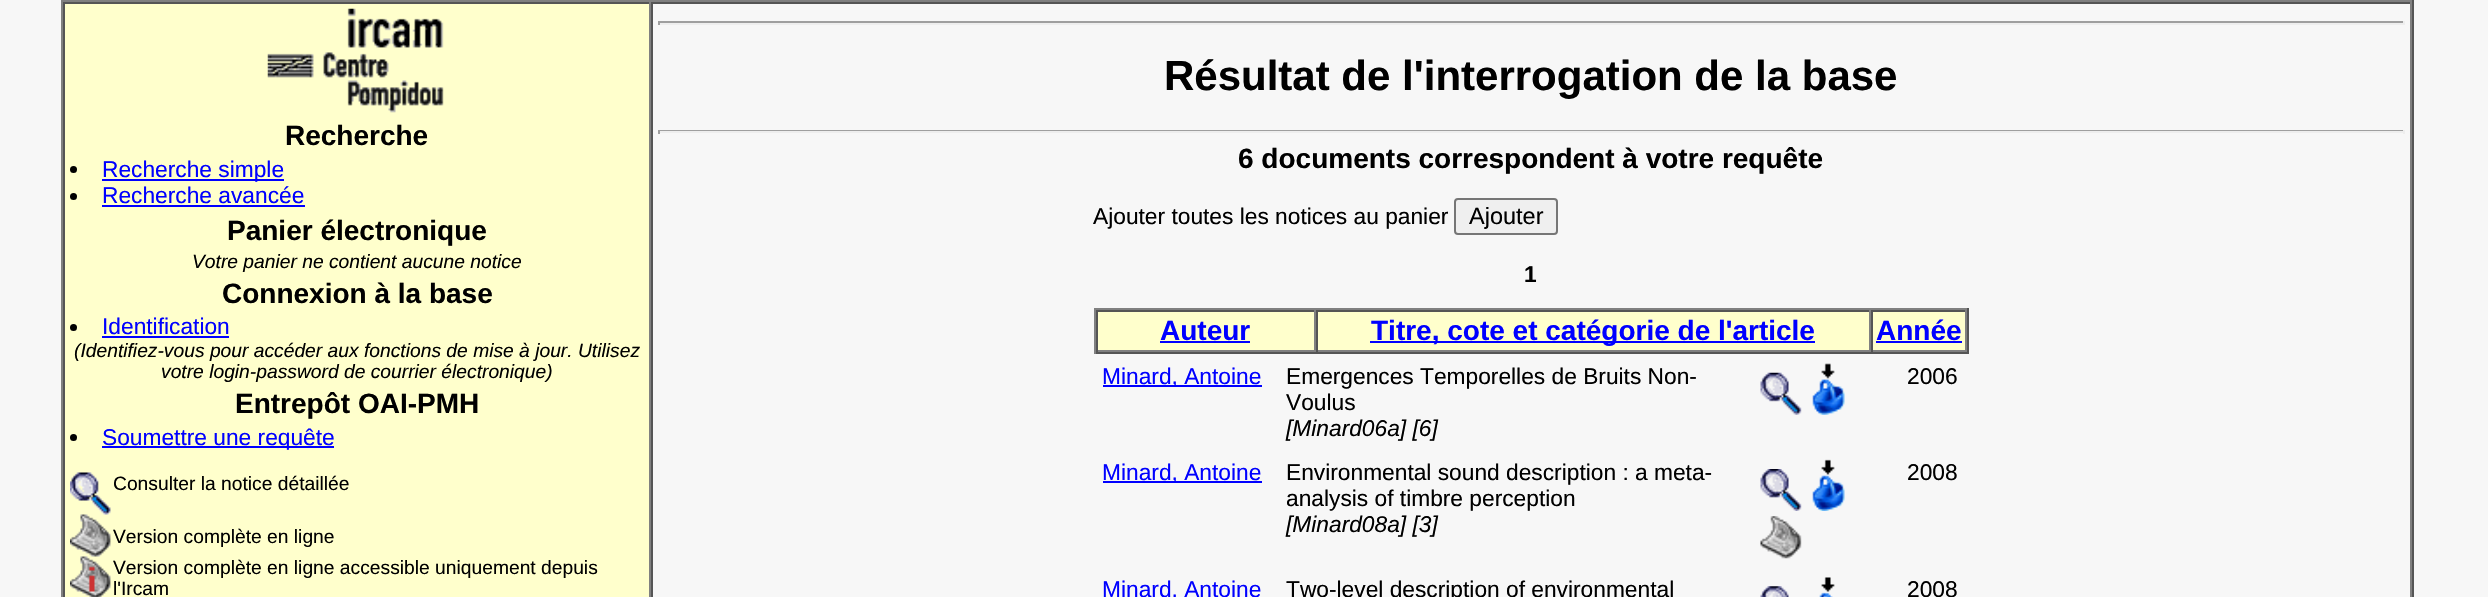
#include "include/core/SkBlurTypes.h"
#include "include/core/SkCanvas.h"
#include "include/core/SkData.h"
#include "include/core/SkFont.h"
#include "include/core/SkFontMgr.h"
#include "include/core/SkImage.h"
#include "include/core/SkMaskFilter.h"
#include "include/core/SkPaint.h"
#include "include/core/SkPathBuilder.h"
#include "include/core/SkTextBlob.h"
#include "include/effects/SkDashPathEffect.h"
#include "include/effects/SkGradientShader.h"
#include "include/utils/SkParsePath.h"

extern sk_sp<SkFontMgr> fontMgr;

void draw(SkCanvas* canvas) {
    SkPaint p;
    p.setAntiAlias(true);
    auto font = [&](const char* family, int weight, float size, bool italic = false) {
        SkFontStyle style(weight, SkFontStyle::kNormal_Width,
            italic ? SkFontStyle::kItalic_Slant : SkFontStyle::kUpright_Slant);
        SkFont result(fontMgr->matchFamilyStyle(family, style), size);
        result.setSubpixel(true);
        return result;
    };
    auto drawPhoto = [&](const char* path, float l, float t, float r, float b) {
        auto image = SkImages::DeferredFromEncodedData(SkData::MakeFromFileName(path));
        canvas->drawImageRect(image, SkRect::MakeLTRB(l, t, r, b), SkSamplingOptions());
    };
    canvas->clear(0xFFF7F7F7);
    {
        const struct { float l, t, r, b; SkColor color; } items[] = {
            {61, 0, 2413, 2, 0xFF808080},
            {2412, 0, 2414, 597, 0xFF555555},
            {61, 0, 63, 597, 0xFF808080},
            {65, 4, 649, 597, 0xFFFFFFCC},
            {63, 2, 2412, 4, 0xFF555555},
            {649, 2, 651, 597, 0xFF808080},
            {63, 2, 65, 597, 0xFF555555},
        };
        for (auto [l, t, r, b, color] : items) {
            p.setColor(color);
            canvas->drawRect(SkRect::MakeLTRB(l, t, r, b), p);
        }
    }
    drawPhoto("media/1.png", 267, 8, 444, 113);
    auto font1 = font("Liberation Sans", 700, 28);
    p.setColor(0xFF000000);
    canvas->drawString("Recherche", 285, 145, font1, p);
    canvas->drawCircle(73.5f, 169.5f, 3.5f, p);
    p.setColor(0xFF0000FF);
    canvas->drawRect(SkRect::MakeLTRB(102, 179, 284, 181), p);
    auto font2 = font("Liberation Sans", 400, 22.75f);
    canvas->drawString("Recherche simple", 102, 177, font2, p);
    p.setColor(0xFF000000);
    canvas->drawCircle(73.5f, 196.5f, 3.5f, p);
    p.setColor(0xFF0000FF);
    canvas->drawString("Recherche avancée", 102, 203, font2, p);
    canvas->drawRect(SkRect::MakeLTRB(102, 205, 305, 207), p);
    p.setColor(0xFF000000);
    canvas->drawString("Panier électronique", 227, 240, font1, p);
    auto font3 = font("Liberation Sans", 400, 19.25f, true);
    canvas->drawString("Votre panier ne contient aucune notice", 192, 268, font3, p);
    canvas->drawString("Connexion à la base", 222, 303, font1, p);
    canvas->drawCircle(73.5f, 327.5f, 3.5f, p);
    p.setColor(0xFF0000FF);
    canvas->drawString("Identification", 102, 334, font2, p);
    canvas->drawRect(SkRect::MakeLTRB(102, 336, 229, 338), p);
    p.setColor(0xFF000000);
    canvas->drawString("(Identifiez-vous pour accéder aux fonctions de mise à jour. Utilisez", 74, 357, font3, p);
    canvas->drawString("votre login-password de courrier électronique)", 161, 378, font3, p);
    canvas->drawString("Entrepôt OAI-PMH", 235, 413, font1, p);
    canvas->drawCircle(73.5f, 437.5f, 3.5f, p);
    p.setColor(0xFF0000FF);
    canvas->drawRect(SkRect::MakeLTRB(102, 446, 334, 448), p);
    canvas->drawString("Soumettre une requête", 102, 445, font2, p);
    drawPhoto("media/2.png", 70, 472, 111, 515);
    auto font4 = font("Liberation Sans", 400, 19.25f);
    p.setColor(0xFF000000);
    canvas->drawString("Consulter la notice détaillée", 113, 490, font4, p);
    drawPhoto("media/3.png", 70, 514, 111, 557);
    canvas->drawString("Version complète en ligne", 113, 543, font4, p);
    drawPhoto("media/4.png", 70, 556, 111, 597);
    canvas->drawString("Version complète en ligne accessible uniquement depuis", 113, 574, font4, p);
    canvas->drawString("l'Ircam", 113, 595, font4, p);
    {
        const struct { float l, t, r, b; SkColor color; } items[] = {
            {2410, 2, 2412, 597, 0xFF808080},
            {651, 2, 653, 597, 0xFF555555},
            {658, 21, 2405, 23, 0xFF9F9F9F},
            {2403, 21, 2405, 25, 0xFFEEEEEE},
            {658, 23, 2405, 25, 0xFFEEEEEE},
            {658, 21, 660, 25, 0xFF9F9F9F},
        };
        for (auto [l, t, r, b, color] : items) {
            p.setColor(color);
            canvas->drawRect(SkRect::MakeLTRB(l, t, r, b), p);
        }
    }
    auto font5 = font("Liberation Sans", 700, 42);
    p.setColor(0xFF000000);
    canvas->drawString("Résultat de l'interrogation de la base", 1164, 90, font5, p);
    {
        const struct { float l, t, r, b; SkColor color; } items[] = {
            {658, 130, 2405, 131, 0xFF9F9F9F},
            {2403, 130, 2405, 134, 0xFFEEEEEE},
            {658, 131, 2405, 133, 0xFFEEEEEE},
            {658, 130, 660, 134, 0xFF9F9F9F},
        };
        for (auto [l, t, r, b, color] : items) {
            p.setColor(color);
            canvas->drawRect(SkRect::MakeLTRB(l, t, r, b), p);
        }
    }
    p.setColor(0xFF000000);
    canvas->drawString("6 documents correspondent à votre requête", 1238, 168, font1, p);
    canvas->drawString("Ajouter toutes les notices au panier", 1093, 224, font2, p);
    p.setColor(0xFFEFEFEF);
    canvas->drawRoundRect(SkRect::MakeLTRB(1455, 199, 1557, 234), 3, 3, p);
    p.setStyle(SkPaint::kStroke_Style);
    p.setStrokeWidth(2);
    p.setColor(0xFF767676);
    canvas->drawRoundRect(SkRect::MakeLTRB(1455, 199, 1557, 234), 3, 3, p);
    auto font6 = font("Liberation Sans", 400, 23.5f);
    p.setStyle(SkPaint::kFill_Style);
    p.setColor(0xFF000000);
    canvas->drawString("Ajouter", 1469, 224, font6, p);
    auto font7 = font("Liberation Sans", 700, 22.75f);
    canvas->drawString("1", 1524, 282, font7, p);
    {
        const struct { float l, t, r, b; SkColor color; } items[] = {
            {1094, 308, 1969, 310, 0xFF808080},
            {1967, 308, 1969, 354, 0xFF555555},
            {1094, 352, 1969, 354, 0xFF555555},
            {1094, 308, 1096, 354, 0xFF808080},
            {1098, 312, 1965, 350, 0xFFFFFFCC},
            {1096, 310, 1967, 312, 0xFF555555},
            {1314, 310, 1316, 352, 0xFF808080},
            {1096, 350, 1316, 352, 0xFF808080},
            {1096, 310, 1098, 352, 0xFF555555},
        };
        for (auto [l, t, r, b, color] : items) {
            p.setColor(color);
            canvas->drawRect(SkRect::MakeLTRB(l, t, r, b), p);
        }
    }
    p.setColor(0xFF0000FF);
    canvas->drawString("Auteur", 1160, 340, font1, p);
    {
        const struct { float l, t, r, b; SkColor color; } items[] = {
            {1160, 341, 1250, 343, 0xFF0000FF},
            {1869, 310, 1871, 352, 0xFF808080},
            {1316, 350, 1871, 352, 0xFF808080},
            {1316, 310, 1318, 352, 0xFF555555},
            {1370, 341, 1815, 343, 0xFF0000FF},
        };
        for (auto [l, t, r, b, color] : items) {
            p.setColor(color);
            canvas->drawRect(SkRect::MakeLTRB(l, t, r, b), p);
        }
    }
    canvas->drawString("Titre, cote et catégorie de l'article", 1371, 340, font1, p);
    {
        const struct { float l, t, r, b; SkColor color; } items[] = {
            {1965, 310, 1967, 352, 0xFF808080},
            {1871, 350, 1967, 352, 0xFF808080},
            {1871, 310, 1873, 352, 0xFF555555},
        };
        for (auto [l, t, r, b, color] : items) {
            p.setColor(color);
            canvas->drawRect(SkRect::MakeLTRB(l, t, r, b), p);
        }
    }
    p.setColor(0xFF0000FF);
    canvas->drawString("Année", 1876, 340, font1, p);
    canvas->drawRect(SkRect::MakeLTRB(1876, 341, 1962, 343), p);
    canvas->drawRect(SkRect::MakeLTRB(1103, 385, 1262, 387), p);
    canvas->drawString("Minard, Antoine", 1102, 384, font2, p);
    p.setColor(0xFF000000);
    canvas->drawString("Emergences Temporelles de Bruits Non-", 1286, 384, font2, p);
    canvas->drawString("Voulus", 1286, 410, font2, p);
    auto font8 = font("Liberation Sans", 400, 22.75f, true);
    canvas->drawString("[Minard06a] [6]", 1286, 436, font8, p);
    drawPhoto("media/5.png", 1760, 372, 1802, 415);
    drawPhoto("media/6.png", 1812, 363, 1845, 415);
    canvas->drawString("2006", 1907, 384, font2, p);
    p.setColor(0xFF0000FF);
    canvas->drawRect(SkRect::MakeLTRB(1103, 481, 1262, 483), p);
    canvas->drawString("Minard, Antoine", 1102, 480, font2, p);
    p.setColor(0xFF000000);
    canvas->drawString("Environmental sound description : a meta-", 1286, 480, font2, p);
    canvas->drawString("analysis of timbre perception", 1286, 506, font2, p);
    canvas->drawString("[Minard08a] [3]", 1286, 532, font8, p);
    drawPhoto("media/7.png", 1760, 469, 1802, 511);
    drawPhoto("media/8.png", 1812, 459, 1845, 511);
    drawPhoto("media/9.png", 1760, 516, 1802, 559);
    canvas->drawString("2008", 1907, 480, font2, p);
    p.setColor(0xFF0000FF);
    canvas->drawString("Minard, Antoine", 1102, 597, font2, p);
    p.setColor(0xFF000000);
    canvas->drawString("Two-level description of environmental", 1286, 597, font2, p);
    drawPhoto("media/10.png", 1760, 586, 1789, 597);
    drawPhoto("media/11.png", 1819, 577, 1835, 597);
    canvas->drawString("2008", 1907, 597, font2, p);
}
